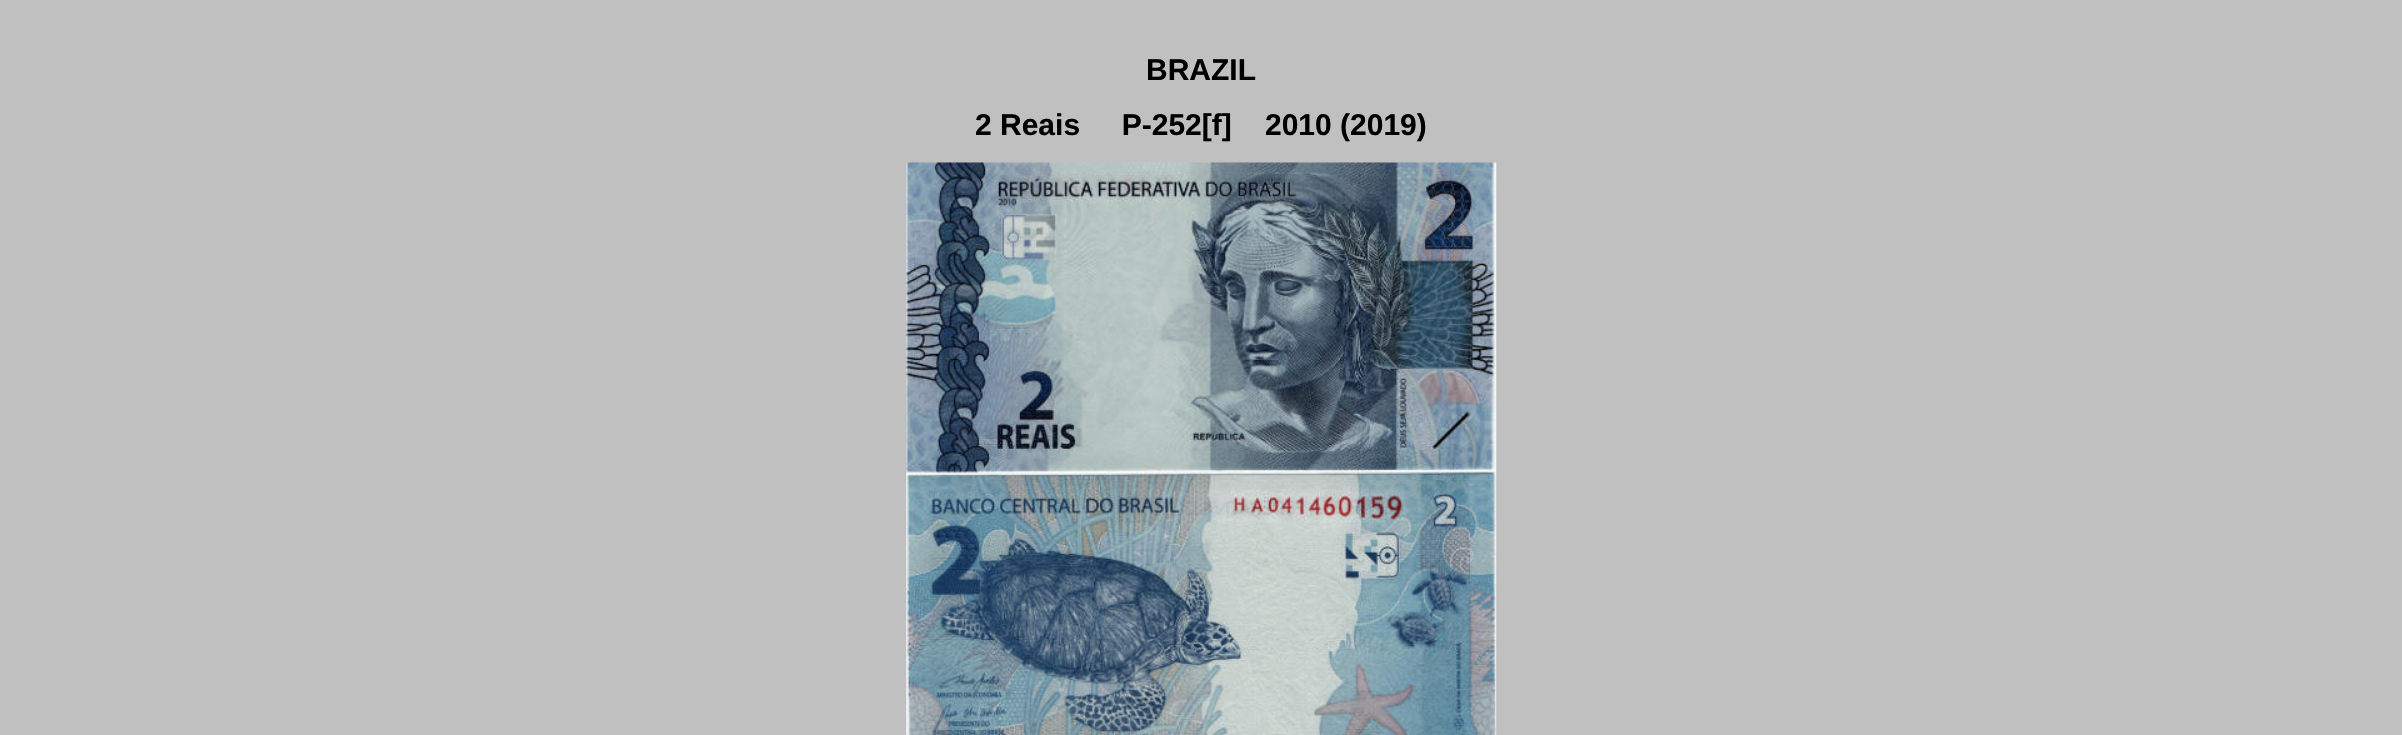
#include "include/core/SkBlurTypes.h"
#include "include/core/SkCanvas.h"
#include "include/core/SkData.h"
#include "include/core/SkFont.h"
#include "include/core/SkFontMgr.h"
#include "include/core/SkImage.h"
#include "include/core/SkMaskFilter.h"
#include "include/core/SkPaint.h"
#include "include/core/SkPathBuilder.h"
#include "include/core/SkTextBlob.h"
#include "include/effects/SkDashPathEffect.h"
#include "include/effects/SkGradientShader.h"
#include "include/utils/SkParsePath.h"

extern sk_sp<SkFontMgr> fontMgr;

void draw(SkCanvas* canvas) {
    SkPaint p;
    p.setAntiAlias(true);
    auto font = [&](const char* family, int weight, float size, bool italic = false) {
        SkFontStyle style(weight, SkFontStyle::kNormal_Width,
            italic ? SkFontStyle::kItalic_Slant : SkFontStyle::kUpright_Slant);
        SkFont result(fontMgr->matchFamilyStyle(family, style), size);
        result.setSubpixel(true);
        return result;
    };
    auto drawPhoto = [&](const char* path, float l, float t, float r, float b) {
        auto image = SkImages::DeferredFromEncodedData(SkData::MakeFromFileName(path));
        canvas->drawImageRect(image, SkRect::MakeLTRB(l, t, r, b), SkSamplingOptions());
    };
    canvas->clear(0xFFC0C0C0);
    auto font1 = font("Liberation Sans", 700, 30);
    p.setColor(0xFF000000);
    {
        const struct { const char* s; float x, y; } items[] = {
            {"BRAZIL", 1146, 80},
            {"2 Reais     P-252[f]", 975, 135},
            {"2010 (2019)", 1265, 135},
        };
        for (auto [s, x, y] : items) {
            canvas->drawString(s, x, y, font1, p);
        }
    }
    drawPhoto("media/1.png", 906, 162, 1497, 735);
}
